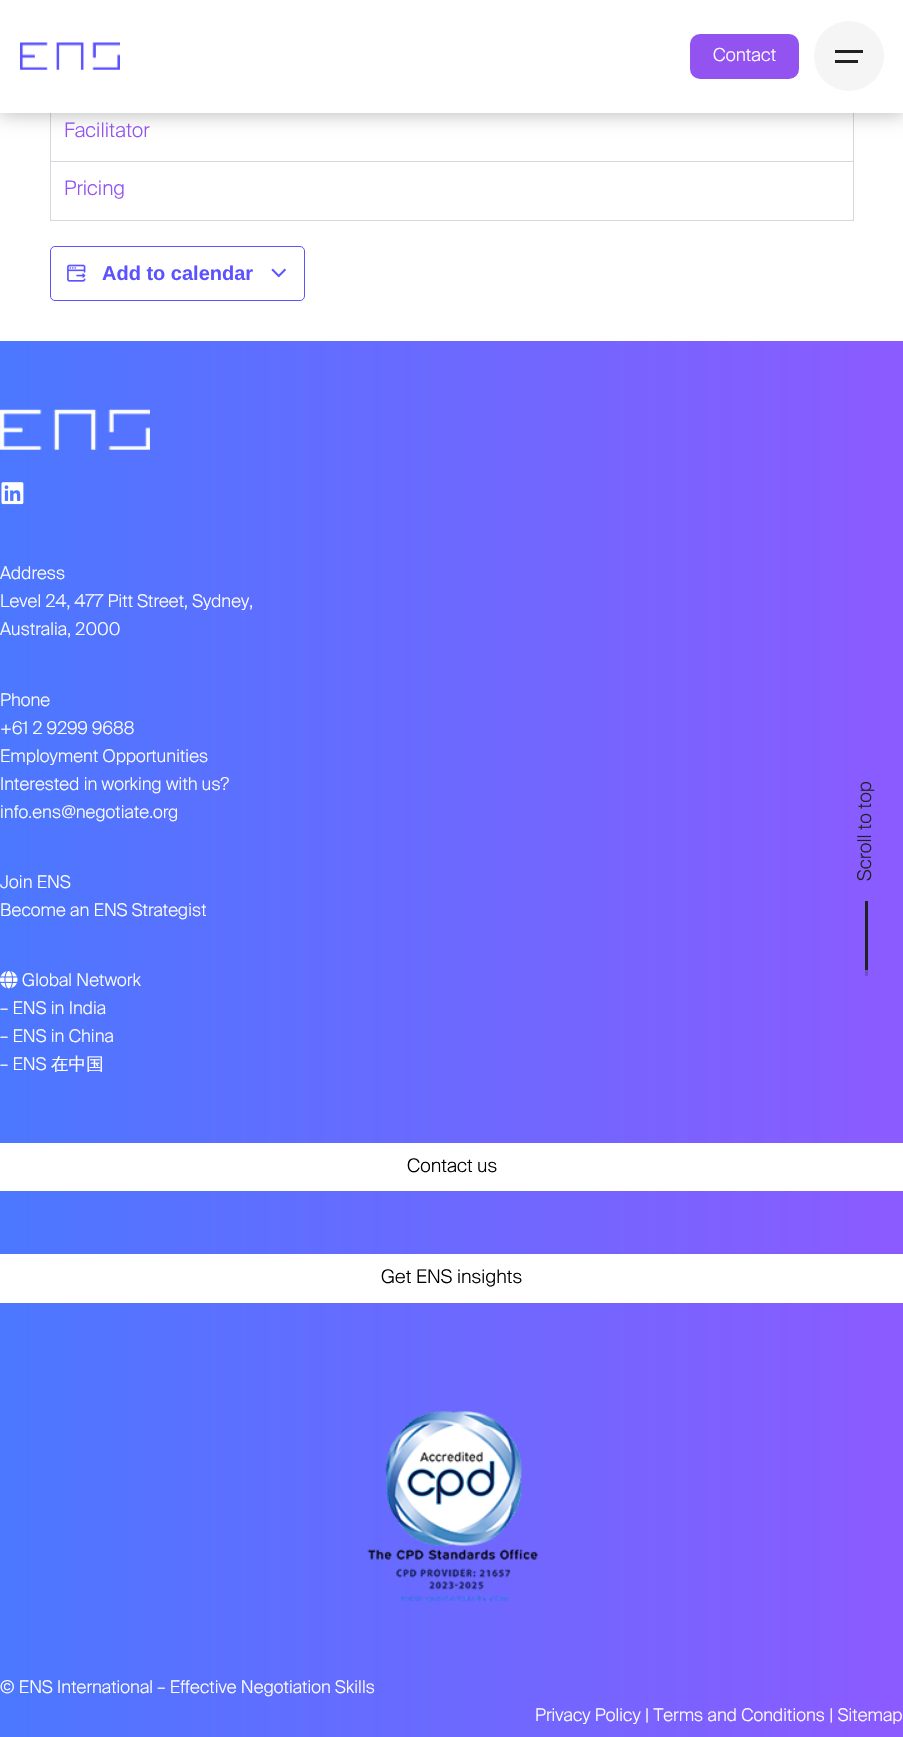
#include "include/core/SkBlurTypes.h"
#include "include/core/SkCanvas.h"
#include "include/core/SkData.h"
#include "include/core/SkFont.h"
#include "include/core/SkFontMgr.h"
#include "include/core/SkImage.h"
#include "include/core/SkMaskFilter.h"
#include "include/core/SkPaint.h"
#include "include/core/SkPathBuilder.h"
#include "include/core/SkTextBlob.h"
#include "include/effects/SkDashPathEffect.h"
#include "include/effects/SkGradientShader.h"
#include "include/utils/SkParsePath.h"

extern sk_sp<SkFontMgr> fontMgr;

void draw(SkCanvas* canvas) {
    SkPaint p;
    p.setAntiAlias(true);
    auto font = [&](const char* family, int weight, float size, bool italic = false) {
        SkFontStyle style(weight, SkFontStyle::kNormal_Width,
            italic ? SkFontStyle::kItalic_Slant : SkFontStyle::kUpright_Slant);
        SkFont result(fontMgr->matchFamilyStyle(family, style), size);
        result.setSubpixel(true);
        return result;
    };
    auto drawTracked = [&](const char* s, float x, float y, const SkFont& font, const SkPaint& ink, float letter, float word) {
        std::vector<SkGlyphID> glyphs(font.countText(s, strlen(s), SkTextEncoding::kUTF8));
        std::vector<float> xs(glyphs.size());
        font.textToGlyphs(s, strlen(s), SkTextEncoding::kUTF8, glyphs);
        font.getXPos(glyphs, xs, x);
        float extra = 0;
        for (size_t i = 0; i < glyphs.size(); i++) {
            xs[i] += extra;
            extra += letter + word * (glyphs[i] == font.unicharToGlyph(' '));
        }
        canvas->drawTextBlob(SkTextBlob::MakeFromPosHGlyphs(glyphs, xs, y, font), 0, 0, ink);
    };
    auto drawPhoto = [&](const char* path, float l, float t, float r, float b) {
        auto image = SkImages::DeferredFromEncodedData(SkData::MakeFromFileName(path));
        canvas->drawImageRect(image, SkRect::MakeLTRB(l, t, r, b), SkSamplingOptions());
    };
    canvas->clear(0xFFFFFFFF);
    p.setColor(0xFFD5D8DC);
    canvas->drawRect(SkRect::MakeLTRB(853, 113, 854, 161), p);
    canvas->drawRect(SkRect::MakeLTRB(50, 113, 51, 161), p);
    p.setColor(0x4D000000);
    p.setMaskFilter(SkMaskFilter::MakeBlur(kNormal_SkBlurStyle, 9.5f));
    canvas->drawRect(SkRect::MakeLTRB(0, 0, 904, 113), p);
    p.setMaskFilter(nullptr);
    p.setColor(0xFFFFFFFF);
    canvas->drawRect(SkRect::MakeLTRB(0, 0, 903, 113), p);
    drawPhoto("media/1.png", 20, 42, 120, 70);
    p.setColor(0xFF9253F1);
    canvas->drawRoundRect(SkRect::MakeLTRB(690, 34, 799, 79), 10, 10, p);
    auto font1 = font("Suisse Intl", 300, 18);
    p.setColor(0xFFFFFFFF);
    drawTracked("Contact", 713, 61, font1, p, 0.1f, 0);
    p.setColor(0xFFF5F5F6);
    canvas->drawCircle(849, 56, 35, p);
    {
        const struct { float l, t, r, b; SkColor color; } items[] = {
            {835, 50, 863, 53, 0xFF212121},
            {835, 60, 858, 63, 0xFF212121},
            {50, 220, 854, 221, 0xFFD5D8DC},
        };
        for (auto [l, t, r, b, color] : items) {
            p.setColor(color);
            canvas->drawRect(SkRect::MakeLTRB(l, t, r, b), p);
        }
    }
    auto font2 = font("Suisse Intl", 300, 20);
    p.setColor(0xFF9253F1);
    drawTracked("Facilitator", 64, 137, font2, p, 0.1f, 0);
    {
        const struct { float l, t, r, b; SkColor color; } items[] = {
            {50, 161, 854, 162, 0xFFD5D8DC},
            {853, 161, 854, 220, 0xFFD5D8DC},
            {50, 161, 51, 220, 0xFFD5D8DC},
        };
        for (auto [l, t, r, b, color] : items) {
            p.setColor(color);
            canvas->drawRect(SkRect::MakeLTRB(l, t, r, b), p);
        }
    }
    p.setColor(0xFF9253F1);
    drawTracked("Pricing", 64, 195, font2, p, 0.1f, 0);
    p.setStyle(SkPaint::kStroke_Style);
    p.setStrokeWidth(1);
    p.setColor(0xFF5C52FF);
    canvas->drawRoundRect(SkRect::MakeLTRB(50.5f, 246.5f, 304.5f, 300.5f), 4.5f, 4.5f, p);
    drawPhoto("media/2.png", 67, 264, 86, 282);
    auto font3 = font("Liberation Sans", 700, 20);
    p.setStyle(SkPaint::kFill_Style);
    canvas->drawString("Add to calendar", 102, 280, font3, p);
    drawPhoto("media/3.png", 271, 268, 286, 278);
    {
        const SkColor colors[] = {0xFF4A78FF, 0xFF8D5AFF};
        const float stops[] = {0, 1};
        const SkPoint ends[] = {{-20, 989}, {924, 989}};
        p.setShader(SkGradientShader::MakeLinear(ends, colors, stops, 2, SkTileMode::kClamp));
        p.setAlpha(255);
    }
    canvas->drawRect(SkRect::MakeLTRB(0, 341, 903, 1638), p);
    drawPhoto("media/4.png", 0, 409, 150, 450);
    drawPhoto("media/5.png", 1, 482, 24, 505);
    auto font4 = font("Suisse Intl", 300, 17.5f);
    p.setShader(nullptr);
    p.setColor(0xFFFFFFFF);
    {
        const struct { const char* s; float x, y; } items[] = {
            {"Address", 0, 579},
            {"Level 24, 477 Pitt Street, Sydney,", 0, 607},
            {"Australia, 2000", 0, 635},
            {"Phone", 0, 706},
            {"+61 2 9299 9688", 0, 734},
            {"Employment Opportunities", 0, 762},
            {"Interested in working with us?", 0, 790},
            {"info.ens@negotiate.org", 0, 818},
            {"Join ENS", 0, 888},
            {"Become an ENS Strategist", 0, 916},
        };
        for (auto [s, x, y] : items) {
            drawTracked(s, x, y, font4, p, 0.1f, 0);
        }
    }
    drawPhoto("media/6.png", 0, 971, 18, 989);
    {
        const struct { const char* s; float x, y; } items[] = {
            {"Global Network", 22, 986},
            {"– ENS in India", 0, 1014},
            {"– ENS in China", 0, 1042},
            {"– ENS", 0, 1070},
        };
        for (auto [s, x, y] : items) {
            drawTracked(s, x, y, font4, p, 0.1f, 0);
        }
    }
    auto font5 = font("WenQuanYi Zen Hei", 500, 17.5f);
    drawTracked("在中国", 51, 1070, font5, p, 0.1f, 0);
    canvas->drawRect(SkRect::MakeLTRB(0, 1143, 903, 1191), p);
    auto font6 = font("Suisse Intl", 300, 18.75f);
    p.setColor(0xFF000000);
    drawTracked("Contact us", 407, 1172, font6, p, 0.1f, 0);
    p.setColor(0xFFFFFFFF);
    canvas->drawRect(SkRect::MakeLTRB(0, 1254, 903, 1303), p);
    p.setColor(0xFF000000);
    drawTracked("Get ENS insights", 381, 1283, font6, p, 0.1f, 0);
    drawPhoto("media/7.png", 367, 1411, 538, 1603);
    {
        const SkColor colors[] = {0xFF4A78FF, 0xFF8D5AFF};
        const float stops[] = {0, 1};
        const SkPoint ends[] = {{-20, 1697}, {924, 1697}};
        p.setShader(SkGradientShader::MakeLinear(ends, colors, stops, 2, SkTileMode::kClamp));
        p.setAlpha(255);
    }
    canvas->drawRect(SkRect::MakeLTRB(0, 1638, 903, 1737), p);
    p.setShader(nullptr);
    p.setColor(0xFFFFFFFF);
    drawTracked("© ENS International – Effective Negotiation Skills", 0, 1693, font4, p, 0.1f, 0);
    drawTracked("Privacy Policy | Terms and Conditions | Sitemap", 535, 1721, font4, p, 0.1f, 0);
    auto font7 = font("Suisse Intl", 300, 19);
    p.setColor(0xFF212121);
    canvas->save();
    canvas->rotate(-90, 871, 881);
    drawTracked("Scroll to top", 871, 881, font7, p, 0.1f, 0);
    canvas->restore();
    canvas->drawRect(SkRect::MakeLTRB(865, 901, 868, 970), p);
    p.setColor(0xFF6F4DC8);
    canvas->drawRect(SkRect::MakeLTRB(865, 970, 868, 976), p);
}
